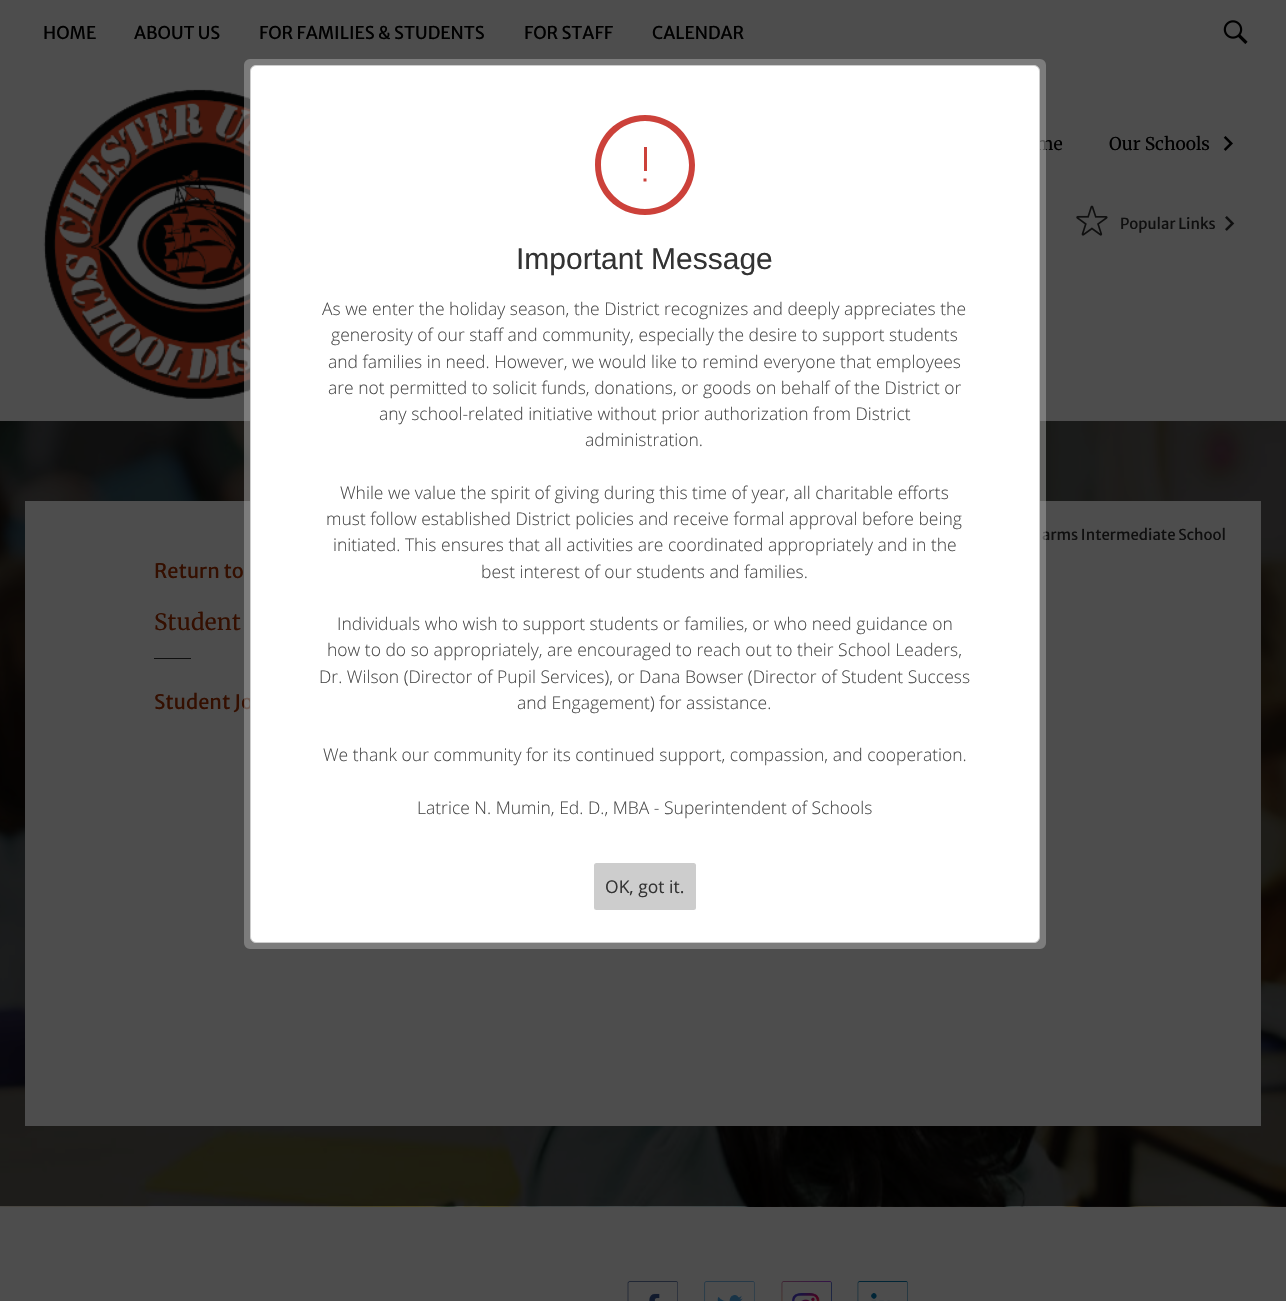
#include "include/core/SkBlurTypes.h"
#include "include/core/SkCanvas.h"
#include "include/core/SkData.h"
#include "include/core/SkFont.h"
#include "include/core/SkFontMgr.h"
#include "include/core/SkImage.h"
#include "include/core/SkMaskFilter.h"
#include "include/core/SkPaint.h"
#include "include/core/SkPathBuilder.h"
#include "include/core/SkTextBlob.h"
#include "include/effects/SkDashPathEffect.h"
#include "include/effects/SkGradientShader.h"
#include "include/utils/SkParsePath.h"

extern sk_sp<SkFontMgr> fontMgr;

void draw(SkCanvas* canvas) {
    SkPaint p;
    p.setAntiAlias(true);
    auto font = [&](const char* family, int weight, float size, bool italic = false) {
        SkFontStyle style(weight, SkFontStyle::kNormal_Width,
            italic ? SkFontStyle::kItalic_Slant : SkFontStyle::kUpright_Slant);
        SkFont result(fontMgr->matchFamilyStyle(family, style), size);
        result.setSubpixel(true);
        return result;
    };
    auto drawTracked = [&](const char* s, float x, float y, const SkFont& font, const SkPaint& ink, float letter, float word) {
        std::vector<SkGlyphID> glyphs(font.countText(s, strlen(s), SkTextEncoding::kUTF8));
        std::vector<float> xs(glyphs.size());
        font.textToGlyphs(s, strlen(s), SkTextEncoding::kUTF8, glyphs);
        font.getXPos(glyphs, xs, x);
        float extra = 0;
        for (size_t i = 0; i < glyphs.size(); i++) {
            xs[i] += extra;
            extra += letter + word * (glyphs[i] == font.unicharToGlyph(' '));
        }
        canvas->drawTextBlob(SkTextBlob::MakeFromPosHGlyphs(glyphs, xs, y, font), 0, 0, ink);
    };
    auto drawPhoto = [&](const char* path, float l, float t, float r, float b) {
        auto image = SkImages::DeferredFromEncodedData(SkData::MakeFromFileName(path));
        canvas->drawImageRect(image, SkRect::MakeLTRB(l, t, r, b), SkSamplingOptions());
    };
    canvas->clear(0xFF4D4D4D);
    auto font1 = font("Merriweather Sans", 400, 17.5f);
    p.setColor(0xFF000000);
    {
        const struct { const char* s; float x, y; } items[] = {
            {"HOME", 43, 39},
            {"ABOUT US", 134, 39},
            {"FOR FAMILIES & STUDENTS", 259, 39},
            {"FOR STAFF", 524, 39},
            {"CALENDAR", 652, 39},
        };
        for (auto [s, x, y] : items) {
            canvas->drawString(s, x, y, font1, p);
        }
    }
    drawPhoto("media/1.png", 1223, 20, 1248, 44);
    drawPhoto("media/2.png", 43, 89, 250, 399);
    auto font2 = font("Merriweather", 300, 17.5f);
    canvas->drawString("me", 1036, 150, font2, p);
    canvas->drawString("Our Schools", 1109, 150, font2, p);
    drawPhoto("media/3.png", 1223, 136, 1233, 151);
    drawPhoto("media/4.png", 1076, 205, 1108, 236);
    auto font3 = font("Merriweather Sans", 400, 15);
    p.setColor(0xFF0F0F0F);
    canvas->drawString("Popular Links", 1120, 229, font3, p);
    drawPhoto("media/5.png", 1225, 216, 1235, 231);
    drawPhoto("media/6.png", 0, 421, 1286, 1207);
    p.setColor(0xFF4D4D4D);
    canvas->drawRect(SkRect::MakeLTRB(25, 501, 1261, 1126), p);
    p.setColor(0xFF0F0F0F);
    canvas->drawString("arms Intermediate School", 1042, 540, font3, p);
    auto font4 = font("Merriweather Sans", 400, 20);
    p.setColor(0xFF340F00);
    canvas->drawString("Return to", 154, 578, font4, p);
    auto font5 = font("Merriweather", 300, 22.5f);
    drawTracked("Student", 154, 630, font5, p, 0.25f, 0);
    p.setColor(0xFF0F0F0F);
    canvas->drawRect(SkRect::MakeLTRB(154, 658, 191, 659), p);
    p.setColor(0xFF340F00);
    canvas->drawString("Student Jo", 154, 709, font4, p);
    drawPhoto("media/7.png", 627, 1281, 678, 1301);
    drawPhoto("media/8.png", 704, 1281, 755, 1301);
    drawPhoto("media/9.png", 781, 1281, 832, 1301);
    drawPhoto("media/10.png", 857, 1281, 908, 1301);
    p.setStyle(SkPaint::kStroke_Style);
    p.setStrokeWidth(8);
    p.setColor(0x80AAAAAA);
    canvas->drawRoundRect(SkRect::MakeLTRB(248, 63, 1042, 945), 2, 2, p);
    p.setStyle(SkPaint::kFill_Style);
    p.setColor(0xFFFFFFFF);
    canvas->drawRoundRect(SkRect::MakeLTRB(250.5f, 65.5f, 1039.5f, 942.5f), 5.5f, 5.5f, p);
    p.setStyle(SkPaint::kStroke_Style);
    p.setStrokeWidth(1);
    p.setColor(0xFFCDCDCD);
    canvas->drawRoundRect(SkRect::MakeLTRB(250.5f, 65.5f, 1039.5f, 942.5f), 5.5f, 5.5f, p);
    p.setStyle(SkPaint::kFill_Style);
    p.setColor(0xFFCC413A);
    canvas->drawPath(SkPathBuilder(SkPathFillType::kEvenOdd).moveTo(645, 215).cubicTo(673, 215, 695, 193, 695, 165).cubicTo(695, 137, 673, 115, 645, 115).cubicTo(617, 115, 595, 137, 595, 165).cubicTo(595, 193, 617, 215, 645, 215).close().moveTo(645, 209).cubicTo(669, 209, 689, 189, 689, 165).cubicTo(689, 141, 669, 121, 645, 121).cubicTo(621, 121, 601, 141, 601, 165).cubicTo(601, 189, 621, 209, 645, 209).close().detach(), p);
    canvas->drawRect(SkRect::MakeLTRB(644, 147, 647, 171), p);
    canvas->drawPath(SkPathBuilder(SkPathFillType::kEvenOdd).moveTo(643.5f, 181.5f).lineTo(646.5f, 181.5f).lineTo(646.5f, 178.5f).lineTo(643.5f, 178.5f).close().detach(), p);
    auto font6 = font("Liberation Sans", 400, 30);
    p.setColor(0xFF333333);
    canvas->drawString("Important Message", 516, 269, font6, p);
    auto font7 = font("Open Sans", 300, 17.5f);
    p.setColor(0xFF4A4A4A);
    {
        const struct { const char* s; float x, y; } items[] = {
            {"As we enter the holiday season, the District recognizes and deeply appreciates the", 322, 315},
            {"generosity of our staff and community, especially the desire to support students", 331, 341},
            {"and families in need. However, we would like to remind everyone that employees", 328, 368},
            {"are not permitted to solicit funds, donations, or goods on behalf of the District or", 328, 394},
            {"any school-related initiative without prior authorization from District", 379, 420},
            {"administration.", 585, 446},
            {"While we value the spirit of giving during this time of year, all charitable efforts", 340, 499},
            {"must follow established District policies and receive formal approval before being", 326, 525},
            {"initiated. This ensures that all activities are coordinated appropriately and in the", 333, 551},
            {"best interest of our students and families.", 481, 578},
            {"Individuals who wish to support students or families, or who need guidance on", 337, 630},
            {"how to do so appropriately, are encouraged to reach out to their School Leaders,", 327, 656},
            {"Dr. Wilson (Director of Pupil Services), or Dana Bowser (Director of Student Success", 319, 683},
            {"and Engagement) for assistance.", 517, 709},
            {"We thank our community for its continued support, compassion, and cooperation.", 323, 761},
            {"Latrice N. Mumin, Ed. D., MBA - Superintendent of Schools", 417, 814},
        };
        for (auto [s, x, y] : items) {
            canvas->drawString(s, x, y, font7, p);
        }
    }
    p.setColor(0xFFCDCDCD);
    canvas->drawRoundRect(SkRect::MakeLTRB(594, 863, 696, 910), 2.5f, 2.5f, p);
    auto font8 = font("Open Sans", 400, 17.5f);
    p.setColor(0xFF333333);
    canvas->drawString("OK, got it.", 605, 893, font8, p);
}
